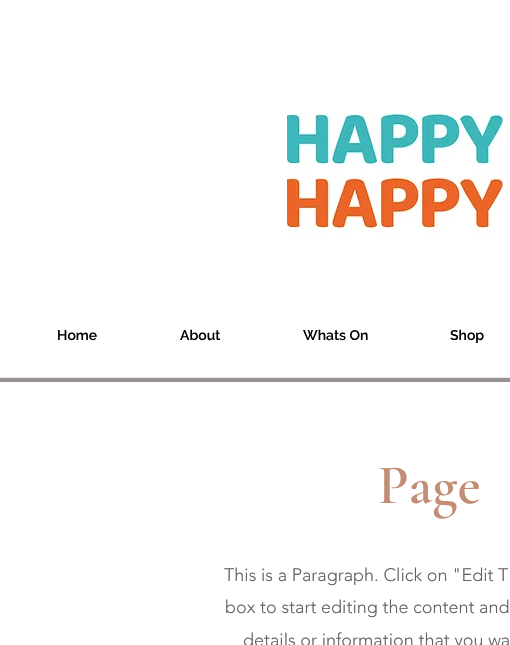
#include "include/core/SkBlurTypes.h"
#include "include/core/SkCanvas.h"
#include "include/core/SkData.h"
#include "include/core/SkFont.h"
#include "include/core/SkFontMgr.h"
#include "include/core/SkImage.h"
#include "include/core/SkMaskFilter.h"
#include "include/core/SkPaint.h"
#include "include/core/SkPathBuilder.h"
#include "include/core/SkTextBlob.h"
#include "include/effects/SkDashPathEffect.h"
#include "include/effects/SkGradientShader.h"
#include "include/utils/SkParsePath.h"

extern sk_sp<SkFontMgr> fontMgr;

void draw(SkCanvas* canvas) {
    SkPaint p;
    p.setAntiAlias(true);
    auto font = [&](const char* family, int weight, float size, bool italic = false) {
        SkFontStyle style(weight, SkFontStyle::kNormal_Width,
            italic ? SkFontStyle::kItalic_Slant : SkFontStyle::kUpright_Slant);
        SkFont result(fontMgr->matchFamilyStyle(family, style), size);
        result.setSubpixel(true);
        return result;
    };
    auto drawPhoto = [&](const char* path, float l, float t, float r, float b) {
        auto image = SkImages::DeferredFromEncodedData(SkData::MakeFromFileName(path));
        canvas->drawImageRect(image, SkRect::MakeLTRB(l, t, r, b), SkSamplingOptions());
    };
    canvas->clear(0xFFFFFFFF);
    drawPhoto("media/1.png", 287, 112, 504, 234);
    auto font1 = font("Raleway", 600, 14);
    p.setColor(0xFF000000);
    {
        const struct { const char* s; float x, y; } items[] = {
            {"Home", 57, 340},
            {"About", 180, 340},
            {"Whats On", 303, 340},
            {"Shop", 450, 340},
        };
        for (auto [s, x, y] : items) {
            canvas->drawString(s, x, y, font1, p);
        }
    }
    p.setColor(0xFFEBE6E6);
    canvas->drawRect(SkRect::MakeLTRB(0, 377, 510, 378), p);
    p.setColor(0xFF959291);
    canvas->drawRect(SkRect::MakeLTRB(0, 378, 510, 382), p);
    auto font2 = font("Cormorant Garamond", 600, 56);
    p.setColor(0xFFC28D74);
    canvas->drawString("Page", 378, 503, font2, p);
    auto font3 = font("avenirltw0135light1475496", 300, 18);
    p.setColor(0xFF636260);
    {
        const struct { const char* s; float x, y; } items[] = {
            {"This is a Paragraph. Click on \"Edit T", 224, 581},
            {"box to start editing the content and", 225, 613},
            {"details or information that you wa", 243, 646},
        };
        for (auto [s, x, y] : items) {
            canvas->drawString(s, x, y, font3, p);
        }
    }
}
